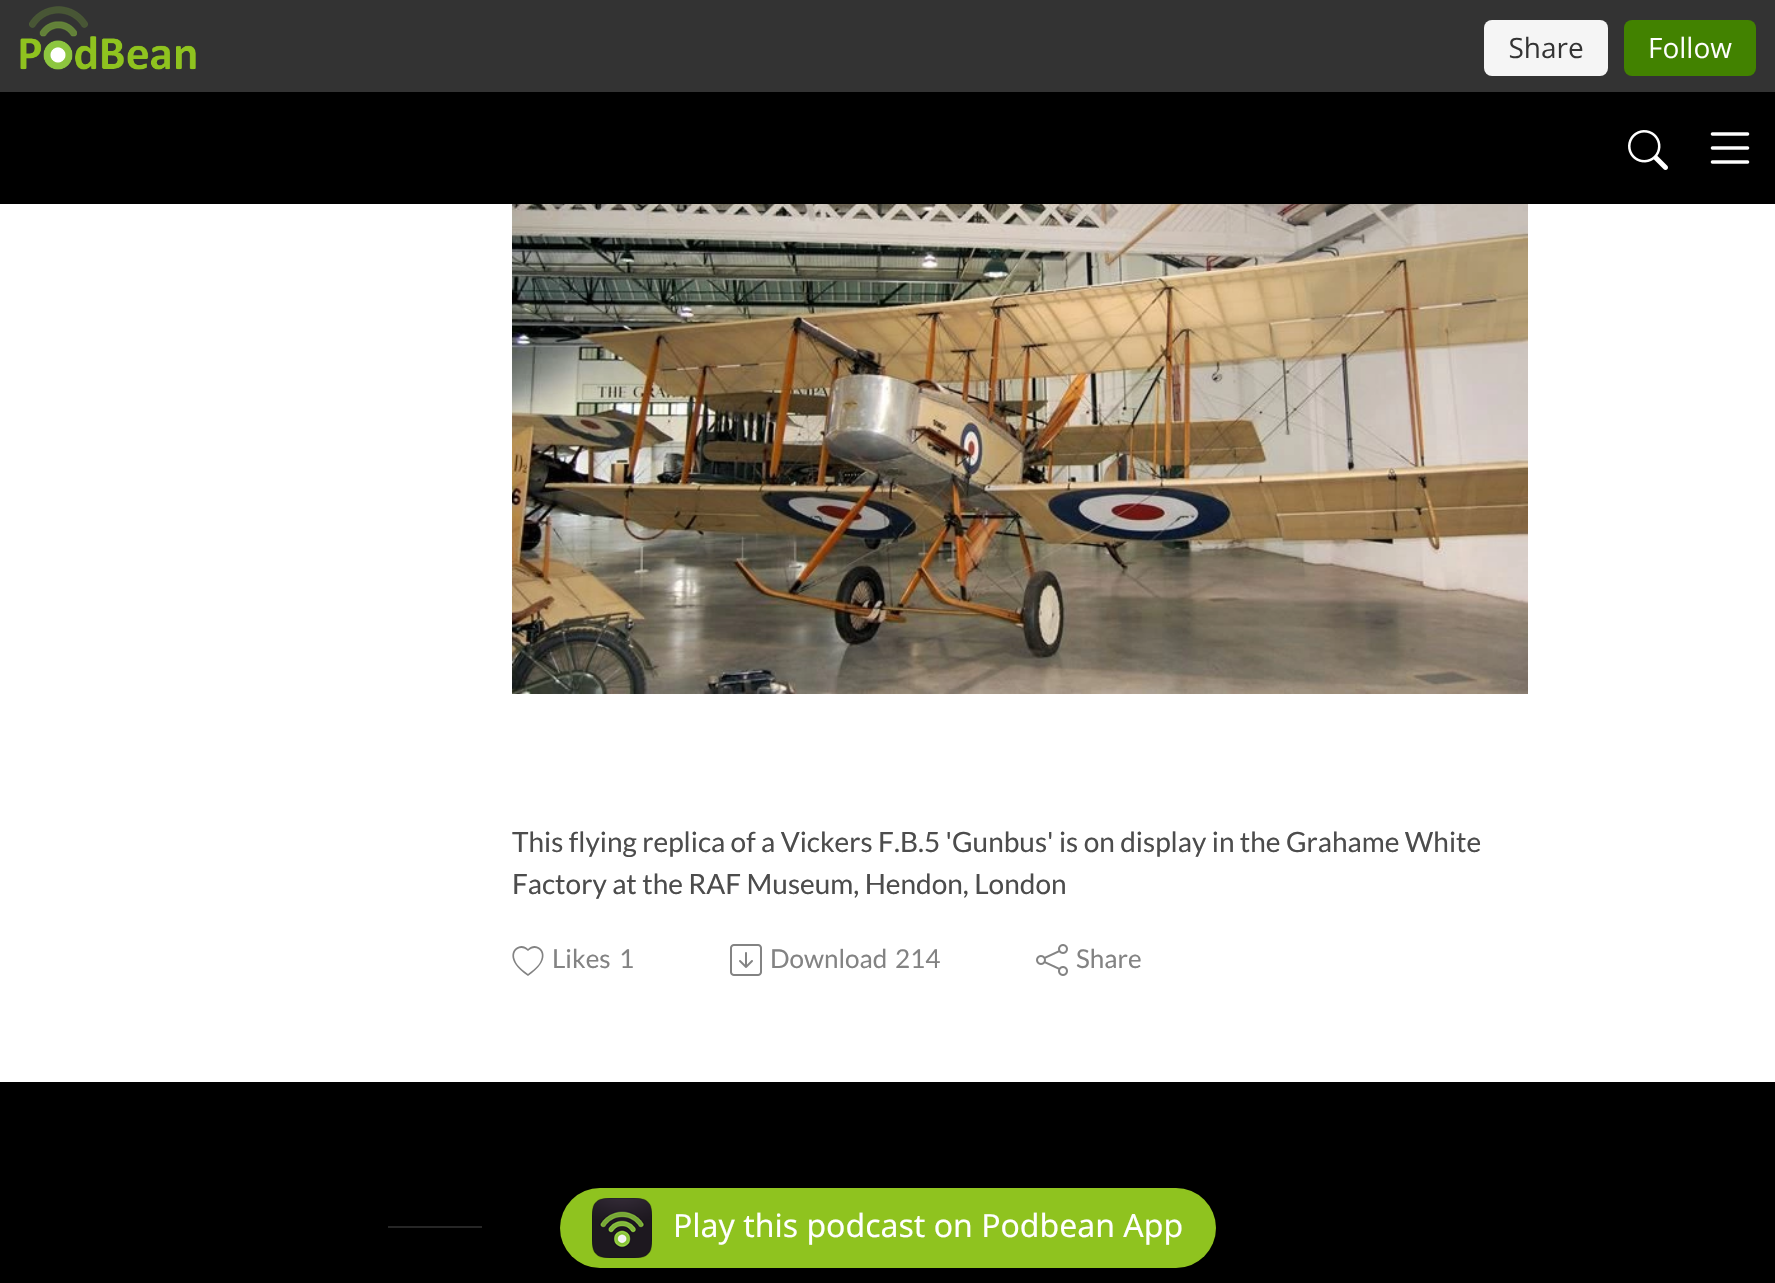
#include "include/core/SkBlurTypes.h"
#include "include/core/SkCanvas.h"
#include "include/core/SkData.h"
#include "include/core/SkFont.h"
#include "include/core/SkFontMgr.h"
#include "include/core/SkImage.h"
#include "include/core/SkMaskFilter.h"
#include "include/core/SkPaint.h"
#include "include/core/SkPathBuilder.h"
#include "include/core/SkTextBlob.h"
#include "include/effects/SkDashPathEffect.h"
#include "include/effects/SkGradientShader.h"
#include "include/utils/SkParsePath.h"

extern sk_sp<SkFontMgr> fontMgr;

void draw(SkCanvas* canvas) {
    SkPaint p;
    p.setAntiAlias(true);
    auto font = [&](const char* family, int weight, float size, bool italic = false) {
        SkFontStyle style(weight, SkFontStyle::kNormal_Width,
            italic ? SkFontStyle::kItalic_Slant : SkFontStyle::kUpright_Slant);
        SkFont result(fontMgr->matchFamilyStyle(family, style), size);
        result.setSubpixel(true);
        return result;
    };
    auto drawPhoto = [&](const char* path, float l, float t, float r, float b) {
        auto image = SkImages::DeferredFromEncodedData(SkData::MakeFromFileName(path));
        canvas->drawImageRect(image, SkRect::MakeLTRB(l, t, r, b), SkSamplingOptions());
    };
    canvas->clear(0xFFFFFFFF);
    p.setColor(0xFF333333);
    canvas->drawRect(SkRect::MakeLTRB(0, 0, 1775, 92), p);
    drawPhoto("media/1.png", 20, 6, 1756, 76);
    p.setColor(0xFF000000);
    canvas->drawRect(SkRect::MakeLTRB(0, 92, 1775, 204), p);
    drawPhoto("media/2.png", 1628, 130, 1668, 170);
    drawPhoto("media/3.png", 1710, 132, 1750, 164);
    drawPhoto("media/4.png", 512, 204, 1528, 694);
    auto font1 = font("Lato", 400, 28);
    p.setColor(0xFF4C4C4C);
    canvas->drawString("This flying replica of a Vickers F.B.5 'Gunbus' is on display in the Grahame White", 512, 852, font1, p);
    canvas->drawString("Factory at the RAF Museum, Hendon, London", 512, 894, font1, p);
    p.setColor(0xFF838383);
    canvas->drawPath(SkPathBuilder().moveTo(528, 951).cubicTo(521, 944, 511, 950, 515, 960).cubicTo(517, 966, 523, 970, 528, 974).cubicTo(533, 970, 539, 966, 541, 960).cubicTo(545, 950, 535, 944, 528, 951).close().moveTo(528, 976).cubicTo(498, 956, 519, 939, 528, 949).cubicTo(537, 939, 558, 956, 528, 976).close().detach(), p);
    auto font2 = font("Lato", 400, 26);
    canvas->drawString("Likes", 552, 968, font2, p);
    canvas->drawString("1", 619, 968, font2, p);
    drawPhoto("media/5.png", 730, 944, 762, 976);
    canvas->drawString("Download", 770, 968, font2, p);
    canvas->drawString("214", 895, 968, font2, p);
    drawPhoto("media/6.png", 1036, 944, 1068, 976);
    canvas->drawString("Share", 1076, 968, font2, p);
    {
        const struct { float l, t, r, b; SkColor color; } items[] = {
            {0, 1082, 1775, 1283, 0xFF000000},
            {388, 1226, 482, 1228, 0xFF808080},
            {388, 1226, 482, 1228, 0xB3000000},
        };
        for (auto [l, t, r, b, color] : items) {
            p.setColor(color);
            canvas->drawRect(SkRect::MakeLTRB(l, t, r, b), p);
        }
    }
    p.setColor(0xFF8FC31F);
    canvas->drawRoundRect(SkRect::MakeLTRB(560, 1188, 1216, 1268), 40, 40, p);
    drawPhoto("media/7.png", 592, 1198, 652, 1258);
    auto font3 = font("Noto Sans", 400, 32);
    p.setColor(0xFFFFFFFF);
    canvas->drawString("Play this podcast on Podbean App", 673, 1237, font3, p);
}
